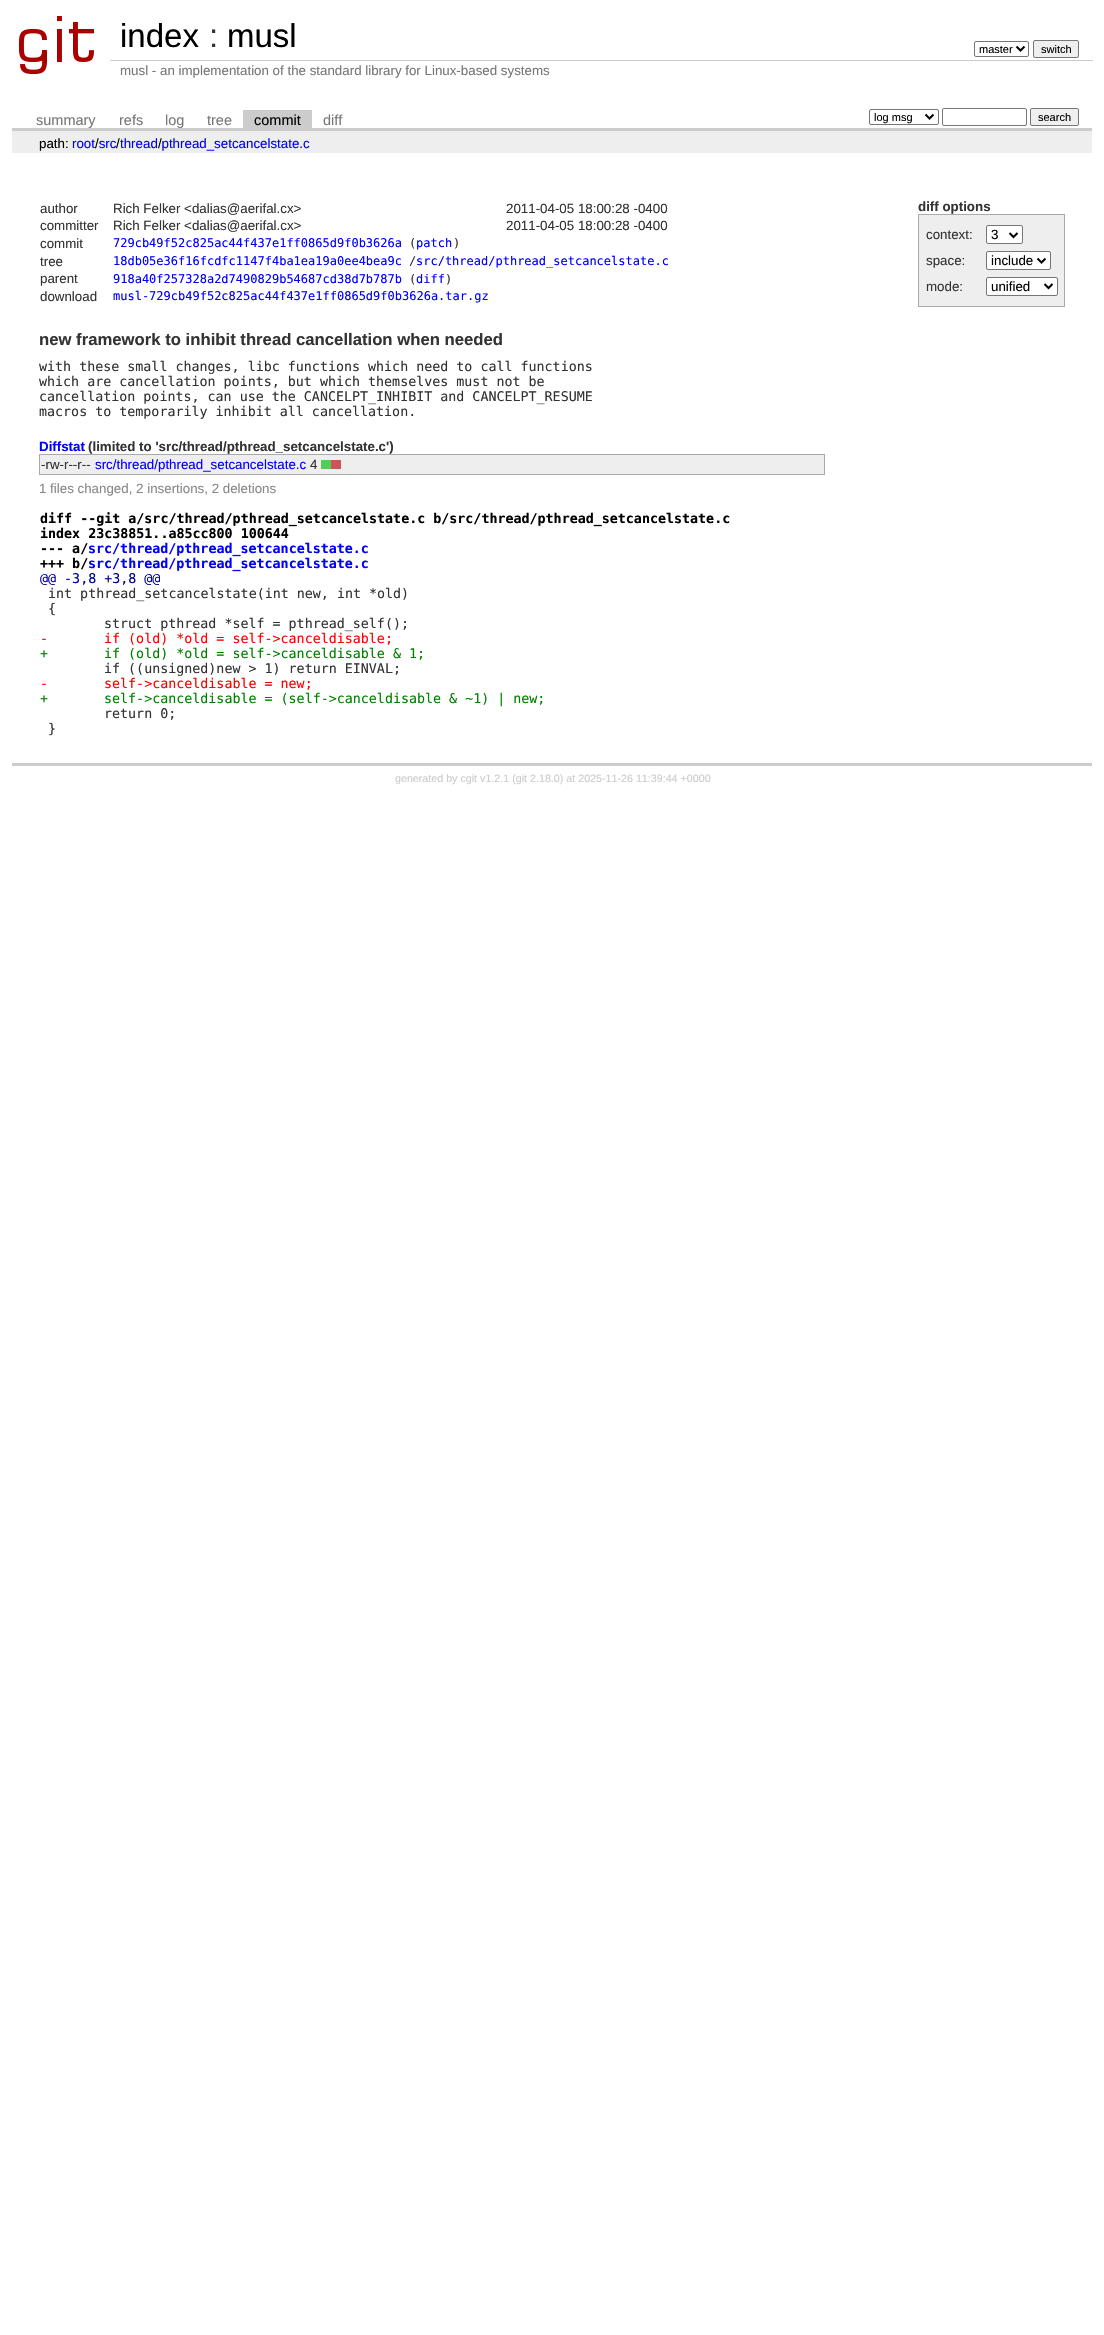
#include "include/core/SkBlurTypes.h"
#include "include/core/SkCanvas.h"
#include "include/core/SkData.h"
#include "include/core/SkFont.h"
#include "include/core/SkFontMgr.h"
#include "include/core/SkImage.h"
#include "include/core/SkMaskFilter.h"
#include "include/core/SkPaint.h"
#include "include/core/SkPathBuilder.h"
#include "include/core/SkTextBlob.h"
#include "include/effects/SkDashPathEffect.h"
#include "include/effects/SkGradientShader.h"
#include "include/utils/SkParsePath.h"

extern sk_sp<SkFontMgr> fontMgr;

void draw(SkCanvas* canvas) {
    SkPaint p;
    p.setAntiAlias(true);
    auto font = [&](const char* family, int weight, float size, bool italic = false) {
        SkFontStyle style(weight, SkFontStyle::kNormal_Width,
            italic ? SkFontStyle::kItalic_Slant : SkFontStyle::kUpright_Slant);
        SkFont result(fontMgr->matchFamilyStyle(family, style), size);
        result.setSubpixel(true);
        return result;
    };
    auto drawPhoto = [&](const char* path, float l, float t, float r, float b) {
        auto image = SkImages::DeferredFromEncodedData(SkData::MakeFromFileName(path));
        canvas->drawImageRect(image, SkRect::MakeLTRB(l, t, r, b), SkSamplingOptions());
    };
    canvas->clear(0xFFFFFFFF);
    drawPhoto("media/1.png", 19, 16, 94, 74);
    auto font1 = font("Liberation Sans", 400, 33);
    p.setColor(0xFF000000);
    canvas->drawString("index", 120, 47, font1, p);
    p.setColor(0xFF333333);
    canvas->drawString(":", 209, 47, font1, p);
    p.setColor(0xFF000000);
    canvas->drawString("musl", 227, 47, font1, p);
    p.setStyle(SkPaint::kStroke_Style);
    p.setStrokeWidth(1);
    p.setColor(0xFF767676);
    canvas->drawRoundRect(SkRect::MakeLTRB(974.5f, 41.5f, 1028.5f, 56.5f), 1.5f, 1.5f, p);
    p.setStrokeWidth(2);
    p.setColor(0xFF000000);
    canvas->drawPath(SkPathBuilder().moveTo(1016.5f, 46.5f).lineTo(1020.5f, 50.5f).lineTo(1024.5f, 46.5f).detach(), p);
    auto font2 = font("Liberation Sans", 400, 11);
    p.setStyle(SkPaint::kFill_Style);
    canvas->drawString("master", 979, 53, font2, p);
    p.setColor(0xFFEFEFEF);
    canvas->drawRoundRect(SkRect::MakeLTRB(1033.5f, 40.5f, 1078.5f, 57.5f), 1.5f, 1.5f, p);
    p.setStyle(SkPaint::kStroke_Style);
    p.setStrokeWidth(1);
    p.setColor(0xFF767676);
    canvas->drawRoundRect(SkRect::MakeLTRB(1033.5f, 40.5f, 1078.5f, 57.5f), 1.5f, 1.5f, p);
    p.setStyle(SkPaint::kFill_Style);
    p.setColor(0xFF000000);
    canvas->drawString("switch", 1041, 53, font2, p);
    p.setColor(0xFFCCCCCC);
    canvas->drawRect(SkRect::MakeLTRB(110, 60, 1093, 61), p);
    auto font3 = font("Liberation Sans", 400, 13.33f);
    p.setColor(0xFF777777);
    canvas->drawString("musl - an implementation of the standard library for Linux-based systems", 120, 75, font3, p);
    p.setColor(0xFFCCCCCC);
    canvas->drawRect(SkRect::MakeLTRB(12, 128, 1092, 131), p);
    auto font4 = font("Liberation Sans", 400, 14.5f);
    p.setColor(0xFF777777);
    {
        const struct { const char* s; float x, y; } items[] = {
            {"summary", 36, 125},
            {"refs", 119, 125},
            {"log", 165, 125},
            {"tree", 207, 125},
        };
        for (auto [s, x, y] : items) {
            canvas->drawString(s, x, y, font4, p);
        }
    }
    p.setColor(0xFFCCCCCC);
    canvas->drawRect(SkRect::MakeLTRB(243, 110, 312, 128), p);
    p.setColor(0xFF000000);
    canvas->drawString("commit", 254, 125, font4, p);
    p.setColor(0xFF777777);
    canvas->drawString("diff", 323, 125, font4, p);
    p.setStyle(SkPaint::kStroke_Style);
    p.setColor(0xFF767676);
    canvas->drawRoundRect(SkRect::MakeLTRB(869.5f, 109.5f, 938.5f, 124.5f), 1.5f, 1.5f, p);
    p.setStrokeWidth(2);
    p.setColor(0xFF000000);
    canvas->drawPath(SkPathBuilder().moveTo(925.5f, 114.5f).lineTo(929.5f, 118.5f).lineTo(933.5f, 114.5f).detach(), p);
    p.setStyle(SkPaint::kFill_Style);
    canvas->drawString("log msg", 874, 121, font2, p);
    p.setStyle(SkPaint::kStroke_Style);
    p.setStrokeWidth(1);
    p.setColor(0xFF767676);
    canvas->drawRoundRect(SkRect::MakeLTRB(942.5f, 108.5f, 1026.5f, 125.5f), 1.5f, 1.5f, p);
    p.setStyle(SkPaint::kFill_Style);
    p.setColor(0xFFEFEFEF);
    canvas->drawRoundRect(SkRect::MakeLTRB(1030.5f, 108.5f, 1078.5f, 125.5f), 1.5f, 1.5f, p);
    p.setStyle(SkPaint::kStroke_Style);
    p.setColor(0xFF767676);
    canvas->drawRoundRect(SkRect::MakeLTRB(1030.5f, 108.5f, 1078.5f, 125.5f), 1.5f, 1.5f, p);
    p.setStyle(SkPaint::kFill_Style);
    p.setColor(0xFF000000);
    canvas->drawString("search", 1038, 121, font2, p);
    p.setColor(0xFFEEEEEE);
    canvas->drawRect(SkRect::MakeLTRB(12, 131, 1092, 153), p);
    p.setColor(0xFF000000);
    canvas->drawString("path:", 39, 148, font3, p);
    p.setColor(0xFF0000FF);
    canvas->drawString("root src", 72, 148, font3, p);
    p.setColor(0xFF000000);
    canvas->drawString("/", 95, 148, font3, p);
    canvas->drawString("/", 116, 148, font3, p);
    p.setColor(0xFF0000FF);
    canvas->drawString("thread pthread_setcancelstate.c", 120, 148, font3, p);
    p.setColor(0xFF000000);
    canvas->drawString("/", 158, 148, font3, p);
    p.setColor(0xFFCCCCCC);
    canvas->drawRect(SkRect::MakeLTRB(12, 763, 1092, 766), p);
    p.setColor(0xFF333333);
    {
        const struct { const char* s; float x, y; } items[] = {
            {"author", 40, 213},
            {"Rich Felker <dalias@aerifal.cx>", 113, 213},
            {"2011-04-05 18:00:28 -0400", 506, 213},
            {"committer", 40, 230},
            {"Rich Felker <dalias@aerifal.cx>", 113, 230},
            {"2011-04-05 18:00:28 -0400", 506, 230},
            {"commit", 40, 248},
        };
        for (auto [s, x, y] : items) {
            canvas->drawString(s, x, y, font3, p);
        }
    }
    auto font5 = font("DejaVu Sans Mono", 400, 12);
    p.setColor(0xFF0000FF);
    canvas->drawString("729cb49f52c825ac44f437e1ff0865d9f0b3626a", 113, 247, font5, p);
    p.setColor(0xFF333333);
    canvas->drawString("(", 409, 247, font5, p);
    p.setColor(0xFF0000FF);
    canvas->drawString("patch", 416, 247, font5, p);
    p.setColor(0xFF333333);
    canvas->drawString(")", 453, 247, font5, p);
    canvas->drawString("tree", 40, 266, font3, p);
    p.setColor(0xFF0000FF);
    canvas->drawString("18db05e36f16fcdfc1147f4ba1ea19a0ee4bea9c", 113, 265, font5, p);
    p.setColor(0xFF333333);
    canvas->drawString("/", 409, 265, font5, p);
    p.setColor(0xFF0000FF);
    canvas->drawString("src/thread/pthread_setcancelstate.c", 416, 265, font5, p);
    p.setColor(0xFF333333);
    canvas->drawString("parent", 40, 283, font3, p);
    p.setColor(0xFF0000FF);
    canvas->drawString("918a40f257328a2d7490829b54687cd38d7b787b", 113, 283, font5, p);
    p.setColor(0xFF333333);
    canvas->drawString("(", 409, 283, font5, p);
    p.setColor(0xFF0000FF);
    canvas->drawString("diff", 416, 283, font5, p);
    p.setColor(0xFF333333);
    canvas->drawString(")", 445, 283, font5, p);
    canvas->drawString("download", 40, 301, font3, p);
    p.setColor(0xFF0000FF);
    canvas->drawString("musl-729cb49f52c825ac44f437e1ff0865d9f0b3626a.tar.gz", 113, 300, font5, p);
    auto font6 = font("Liberation Sans", 700, 13.33f);
    p.setColor(0xFF333333);
    canvas->drawString("diff options", 918, 211, font6, p);
    {
        const struct { float l, t, r, b; SkColor color; } items[] = {
            {919, 215, 1064, 306, 0xFFEEEEEE},
            {918, 214, 1065, 215, 0xFFAAAAAA},
            {1064, 214, 1065, 307, 0xFFAAAAAA},
            {918, 306, 1065, 307, 0xFFAAAAAA},
            {918, 214, 919, 307, 0xFFAAAAAA},
        };
        for (auto [l, t, r, b, color] : items) {
            p.setColor(color);
            canvas->drawRect(SkRect::MakeLTRB(l, t, r, b), p);
        }
    }
    p.setColor(0xFF333333);
    canvas->drawString("context:", 926, 239, font3, p);
    p.setColor(0xFFFFFFFF);
    canvas->drawRoundRect(SkRect::MakeLTRB(986.5f, 225.5f, 1022.5f, 243.5f), 1.5f, 1.5f, p);
    p.setStyle(SkPaint::kStroke_Style);
    p.setColor(0xFF767676);
    canvas->drawRoundRect(SkRect::MakeLTRB(986.5f, 225.5f, 1022.5f, 243.5f), 1.5f, 1.5f, p);
    p.setStrokeWidth(2);
    p.setColor(0xFF000000);
    canvas->drawPath(SkPathBuilder().moveTo(1009.5f, 233).lineTo(1013.5f, 237).lineTo(1017.5f, 233).detach(), p);
    p.setStyle(SkPaint::kFill_Style);
    canvas->drawString("3", 991, 239, font3, p);
    p.setColor(0xFF333333);
    canvas->drawString("space:", 926, 265, font3, p);
    p.setColor(0xFFFFFFFF);
    canvas->drawRoundRect(SkRect::MakeLTRB(986.5f, 251.5f, 1050.5f, 269.5f), 1.5f, 1.5f, p);
    p.setStyle(SkPaint::kStroke_Style);
    p.setStrokeWidth(1);
    p.setColor(0xFF767676);
    canvas->drawRoundRect(SkRect::MakeLTRB(986.5f, 251.5f, 1050.5f, 269.5f), 1.5f, 1.5f, p);
    p.setStrokeWidth(2);
    p.setColor(0xFF000000);
    canvas->drawPath(SkPathBuilder().moveTo(1037.5f, 258.5f).lineTo(1041.5f, 262.5f).lineTo(1045.5f, 258.5f).detach(), p);
    p.setStyle(SkPaint::kFill_Style);
    canvas->drawString("include", 991, 265, font3, p);
    p.setColor(0xFF333333);
    canvas->drawString("mode:", 926, 291, font3, p);
    p.setColor(0xFFFFFFFF);
    canvas->drawRoundRect(SkRect::MakeLTRB(986.5f, 277.5f, 1057.5f, 295.5f), 1.5f, 1.5f, p);
    p.setStyle(SkPaint::kStroke_Style);
    p.setStrokeWidth(1);
    p.setColor(0xFF767676);
    canvas->drawRoundRect(SkRect::MakeLTRB(986.5f, 277.5f, 1057.5f, 295.5f), 1.5f, 1.5f, p);
    p.setStrokeWidth(2);
    p.setColor(0xFF000000);
    canvas->drawPath(SkPathBuilder().moveTo(1044.5f, 284).lineTo(1048.5f, 288).lineTo(1052.5f, 284).detach(), p);
    p.setStyle(SkPaint::kFill_Style);
    canvas->drawString("unified", 991, 291, font3, p);
    auto font7 = font("Liberation Sans", 700, 16.7f);
    p.setColor(0xFF333333);
    canvas->drawString("new framework to inhibit thread cancellation when needed", 39, 345, font7, p);
    auto font8 = font("DejaVu Sans Mono", 400, 13.33f);
    {
        const struct { const char* s; float x, y; } items[] = {
            {"with these small changes, libc functions which need to call functions", 39, 371},
            {"which are cancellation points, but which themselves must not be", 39, 386},
            {"cancellation points, can use the CANCELPT_INHIBIT and CANCELPT_RESUME", 39, 401},
            {"macros to temporarily inhibit all cancellation.", 39, 416},
        };
        for (auto [s, x, y] : items) {
            canvas->drawString(s, x, y, font8, p);
        }
    }
    p.setColor(0xFF0000FF);
    canvas->drawString("Diffstat", 39, 451, font6, p);
    p.setColor(0xFF333333);
    canvas->drawString("(limited to 'src/thread/pthread_setcancelstate.c')", 88, 451, font6, p);
    {
        const struct { float l, t, r, b; SkColor color; } items[] = {
            {40, 455, 824, 474, 0xFFEEEEEE},
            {39, 454, 825, 455, 0xFFAAAAAA},
            {824, 454, 825, 475, 0xFFAAAAAA},
            {39, 474, 825, 475, 0xFFAAAAAA},
            {39, 454, 40, 475, 0xFFAAAAAA},
        };
        for (auto [l, t, r, b, color] : items) {
            p.setColor(color);
            canvas->drawRect(SkRect::MakeLTRB(l, t, r, b), p);
        }
    }
    p.setColor(0xFF333333);
    canvas->drawString("-rw-r--r--", 41, 469, font3, p);
    p.setColor(0xFF0000FF);
    canvas->drawString("src/thread/pthread_setcancelstate.c", 95, 469, font3, p);
    p.setColor(0xFF333333);
    canvas->drawString("4", 310, 469, font3, p);
    p.setColor(0xFF55CC55);
    canvas->drawRect(SkRect::MakeLTRB(321, 460, 331, 469), p);
    p.setColor(0xFFCC5555);
    canvas->drawRect(SkRect::MakeLTRB(331, 460, 341, 469), p);
    p.setColor(0xFF888888);
    canvas->drawString("1 files changed, 2 insertions, 2 deletions", 39, 493, font3, p);
    auto font9 = font("DejaVu Sans Mono", 700, 13.33f);
    p.setColor(0xFF000000);
    {
        const struct { const char* s; float x, y; } items[] = {
            {"diff --git a/src/thread/pthread_setcancelstate.c b/src/thread/pthread_setcancelstate.c", 40, 523},
            {"index 23c38851..a85cc800 100644", 40, 538},
            {"--- a/", 40, 553},
        };
        for (auto [s, x, y] : items) {
            canvas->drawString(s, x, y, font9, p);
        }
    }
    p.setColor(0xFF0000FF);
    canvas->drawString("src/thread/pthread_setcancelstate.c", 88, 553, font9, p);
    p.setColor(0xFF000000);
    canvas->drawString("+++ b/", 40, 568, font9, p);
    p.setColor(0xFF0000FF);
    canvas->drawString("src/thread/pthread_setcancelstate.c", 88, 568, font9, p);
    p.setColor(0xFF000099);
    canvas->drawString("@@ -3,8 +3,8 @@", 40, 583, font8, p);
    p.setColor(0xFF333333);
    {
        const struct { const char* s; float x, y; } items[] = {
            {"int pthread_setcancelstate(int new, int *old)", 48, 598},
            {"{", 48, 613},
            {"struct pthread *self = pthread_self();", 104, 628},
        };
        for (auto [s, x, y] : items) {
            canvas->drawString(s, x, y, font8, p);
        }
    }
    p.setColor(0xFFFF0000);
    canvas->drawString("-", 40, 643, font8, p);
    canvas->drawString("if (old) *old = self->canceldisable;", 104, 643, font8, p);
    p.setColor(0xFF008000);
    canvas->drawString("+", 40, 658, font8, p);
    canvas->drawString("if (old) *old = self->canceldisable & 1;", 104, 658, font8, p);
    p.setColor(0xFF333333);
    canvas->drawString("if ((unsigned)new > 1) return EINVAL;", 104, 673, font8, p);
    p.setColor(0xFFFF0000);
    canvas->drawString("-", 40, 688, font8, p);
    canvas->drawString("self->canceldisable = new;", 104, 688, font8, p);
    p.setColor(0xFF008000);
    canvas->drawString("+", 40, 703, font8, p);
    canvas->drawString("self->canceldisable = (self->canceldisable & ~1) | new;", 104, 703, font8, p);
    p.setColor(0xFF333333);
    canvas->drawString("return 0;", 104, 718, font8, p);
    canvas->drawString("}", 48, 733, font8, p);
    auto font10 = font("Liberation Sans", 400, 10.7f);
    p.setColor(0xFFCCCCCC);
    canvas->drawString("generated by cgit v1.2.1 (git 2.18.0) at 2025-11-26 11:39:44 +0000", 395, 782, font10, p);
}
